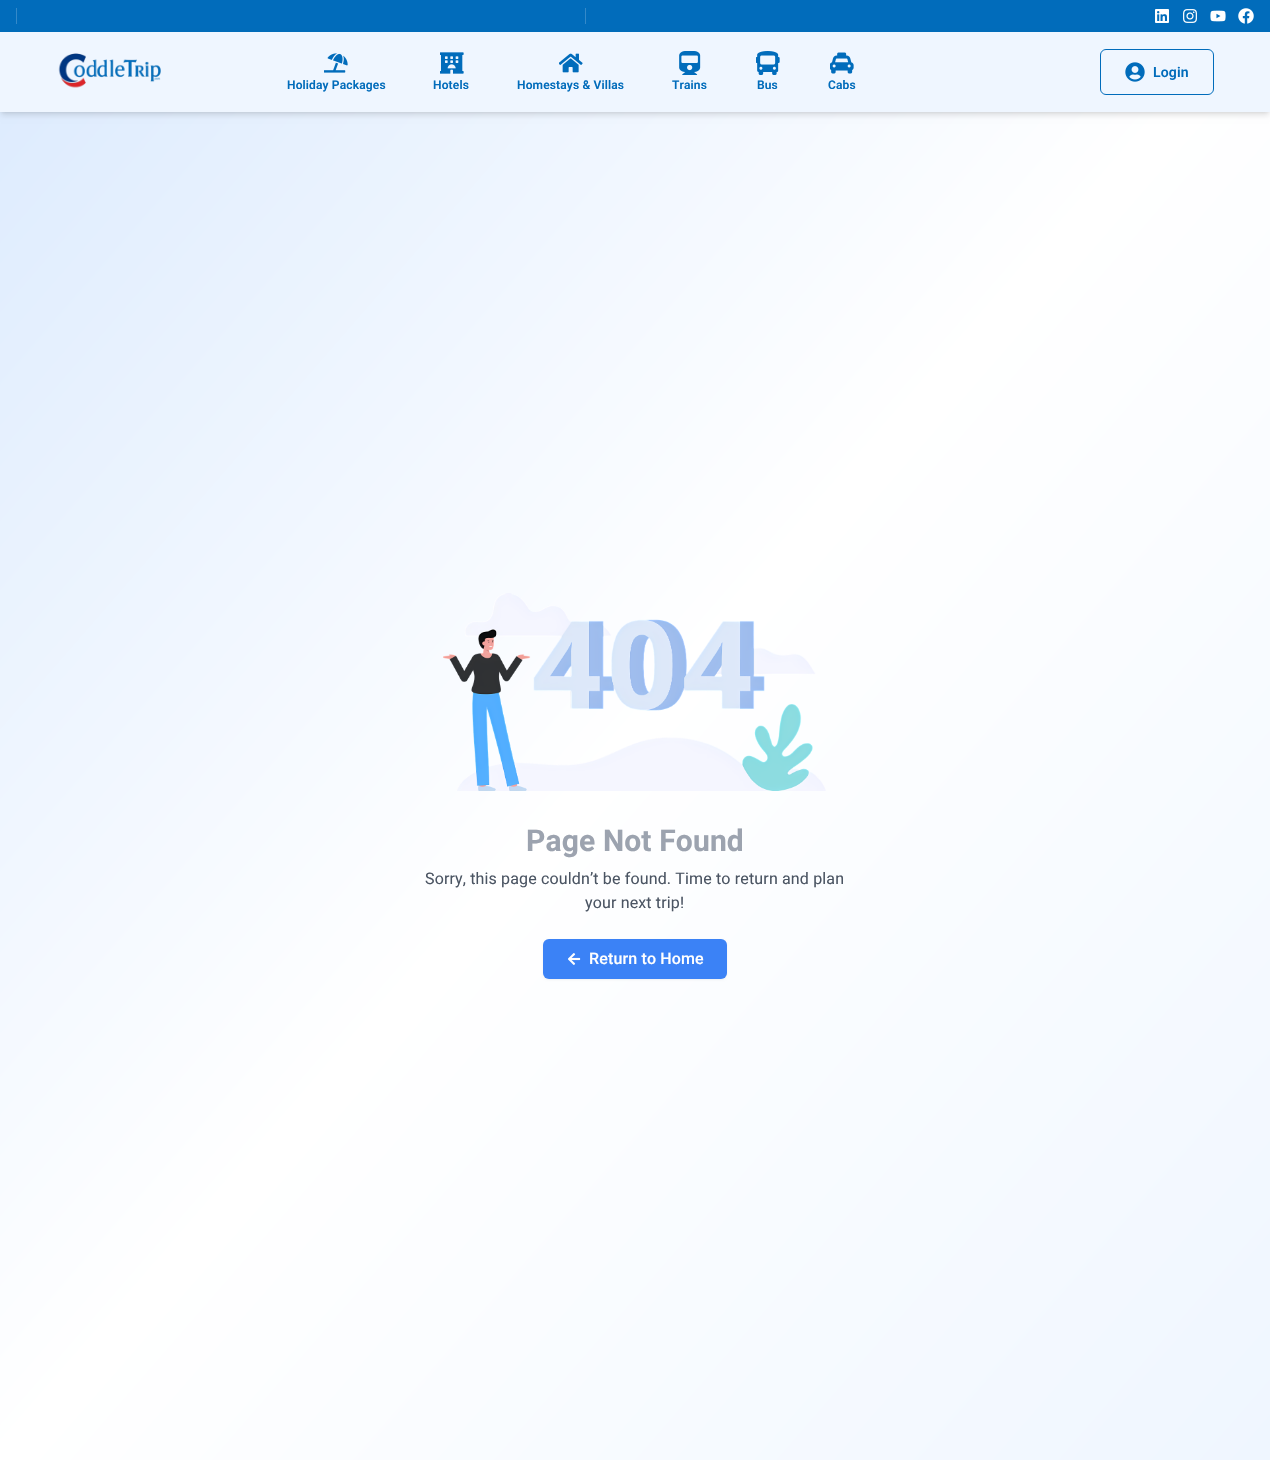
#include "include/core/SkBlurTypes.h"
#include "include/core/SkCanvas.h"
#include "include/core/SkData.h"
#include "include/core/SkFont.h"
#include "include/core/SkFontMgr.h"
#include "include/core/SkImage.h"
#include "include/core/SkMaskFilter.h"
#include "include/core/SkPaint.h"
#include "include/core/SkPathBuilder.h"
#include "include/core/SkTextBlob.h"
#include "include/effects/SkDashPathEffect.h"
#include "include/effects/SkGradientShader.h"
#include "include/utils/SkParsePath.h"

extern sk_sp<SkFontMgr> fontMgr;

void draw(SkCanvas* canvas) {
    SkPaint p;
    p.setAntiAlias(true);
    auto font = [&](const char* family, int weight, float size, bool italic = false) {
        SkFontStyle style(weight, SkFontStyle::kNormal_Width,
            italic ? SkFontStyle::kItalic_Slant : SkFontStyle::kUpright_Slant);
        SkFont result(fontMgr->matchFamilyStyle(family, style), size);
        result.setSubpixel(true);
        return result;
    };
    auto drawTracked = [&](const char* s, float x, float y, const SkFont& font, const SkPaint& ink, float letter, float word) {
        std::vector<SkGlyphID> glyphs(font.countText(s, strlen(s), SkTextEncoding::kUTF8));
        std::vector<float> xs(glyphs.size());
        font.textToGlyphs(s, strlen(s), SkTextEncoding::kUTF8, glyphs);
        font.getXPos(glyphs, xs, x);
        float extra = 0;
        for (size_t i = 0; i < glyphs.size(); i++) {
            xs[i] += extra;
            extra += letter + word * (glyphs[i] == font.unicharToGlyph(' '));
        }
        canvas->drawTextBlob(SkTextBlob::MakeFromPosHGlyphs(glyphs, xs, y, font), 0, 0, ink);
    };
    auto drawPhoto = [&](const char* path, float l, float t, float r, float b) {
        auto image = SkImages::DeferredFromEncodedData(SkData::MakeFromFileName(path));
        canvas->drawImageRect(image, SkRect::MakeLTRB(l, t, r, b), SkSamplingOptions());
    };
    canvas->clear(0xFFFFFFFF);
    {
        const SkColor colors[] = {0xFFDBEAFE, 0xFFFFFFFF, 0xFFEFF6FF};
        const float stops[] = {0, 0.5f, 1};
        const SkPoint ends[] = {{-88, 101}, {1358, 1359}};
        p.setShader(SkGradientShader::MakeLinear(ends, colors, stops, 3, SkTileMode::kClamp));
        p.setAlpha(255);
    }
    canvas->drawRect(SkRect::MakeLTRB(0, 112, 1270, 1460), p);
    p.setShader(nullptr);
    {
        const struct { float l, t, r, b; SkColor color; } items[] = {
            {0, 0, 1270, 32, 0xFF016CBB},
            {16, 8, 17, 24, 0xFF3489C9},
            {585, 8, 586, 24, 0xFF3489C9},
        };
        for (auto [l, t, r, b, color] : items) {
            p.setColor(color);
            canvas->drawRect(SkRect::MakeLTRB(l, t, r, b), p);
        }
    }
    drawPhoto("media/1.png", 1155, 9, 1169, 23);
    drawPhoto("media/2.png", 1183, 9, 1197, 23);
    drawPhoto("media/3.png", 1210, 10, 1226, 22);
    drawPhoto("media/4.png", 1238, 8, 1254, 24);
    p.setColor(0x1A000000);
    p.setMaskFilter(SkMaskFilter::MakeBlur(kNormal_SkBlurStyle, 2));
    canvas->drawRect(SkRect::MakeLTRB(2, 36, 1268, 112), p);
    p.setMaskFilter(nullptr);
    p.setMaskFilter(SkMaskFilter::MakeBlur(kNormal_SkBlurStyle, 3));
    canvas->drawRect(SkRect::MakeLTRB(1, 37, 1269, 115), p);
    p.setMaskFilter(nullptr);
    p.setColor(0xFFEFF6FF);
    canvas->drawRect(SkRect::MakeLTRB(0, 32, 1270, 112), p);
    drawPhoto("media/5.png", 58, 53, 161, 88);
    p.setStyle(SkPaint::kStroke_Style);
    p.setStrokeWidth(1);
    p.setColor(0xFF016CBB);
    canvas->drawRoundRect(SkRect::MakeLTRB(1100.5f, 49.5f, 1213.5f, 94.5f), 5.5f, 5.5f, p);
    drawPhoto("media/6.png", 1125, 62, 1145, 82);
    auto font1 = font("Roboto", 600, 14);
    p.setStyle(SkPaint::kFill_Style);
    drawTracked("Login", 1153, 77, font1, p, 0.15f, 0);
    drawPhoto("media/7.png", 324, 53, 348, 73);
    auto font2 = font("Roboto", 600, 12);
    drawTracked("Holiday Packages", 287, 89, font2, p, 0.15f, 0);
    drawPhoto("media/8.png", 440, 52, 464, 74);
    drawTracked("Hotels", 433, 89, font2, p, 0.15f, 0);
    drawPhoto("media/9.png", 559, 53, 583, 73);
    drawTracked("Homestays & Villas", 517, 89, font2, p, 0.15f, 0);
    drawPhoto("media/10.png", 679, 51, 701, 75);
    drawTracked("Trains", 672, 89, font2, p, 0.15f, 0);
    drawPhoto("media/11.png", 756, 51, 780, 75);
    drawTracked("Bus", 757, 89, font2, p, 0.15f, 0);
    drawPhoto("media/12.png", 830, 52, 854, 74);
    drawTracked("Cabs", 828, 89, font2, p, 0.15f, 0);
    drawPhoto("media/13.png", 443, 593, 826, 791);
    auto font3 = font("Roboto", 700, 30);
    p.setColor(0xFF9CA3AF);
    drawTracked("Page Not Found", 526, 851, font3, p, 0.15f, 0);
    auto font4 = font("Roboto", 400, 16);
    p.setColor(0xFF4B5563);
    drawTracked("Sorry, this page couldn’t be found. Time to return and plan", 425, 884, font4, p, 0.15f, 0);
    drawTracked("your next trip!", 585, 908, font4, p, 0.15f, 0);
    p.setColor(0x0D000000);
    p.setMaskFilter(SkMaskFilter::MakeBlur(kNormal_SkBlurStyle, 1));
    canvas->drawRoundRect(SkRect::MakeLTRB(543, 940, 727, 980), 6, 6, p);
    p.setMaskFilter(nullptr);
    p.setColor(0xFF3B82F6);
    canvas->drawRoundRect(SkRect::MakeLTRB(543, 939, 727, 979), 6, 6, p);
    drawPhoto("media/14.png", 568, 953, 581, 965);
    auto font5 = font("Roboto", 500, 16);
    p.setColor(0xFFFFFFFF);
    drawTracked("Return to Home", 589, 964, font5, p, 0.15f, 0);
}
